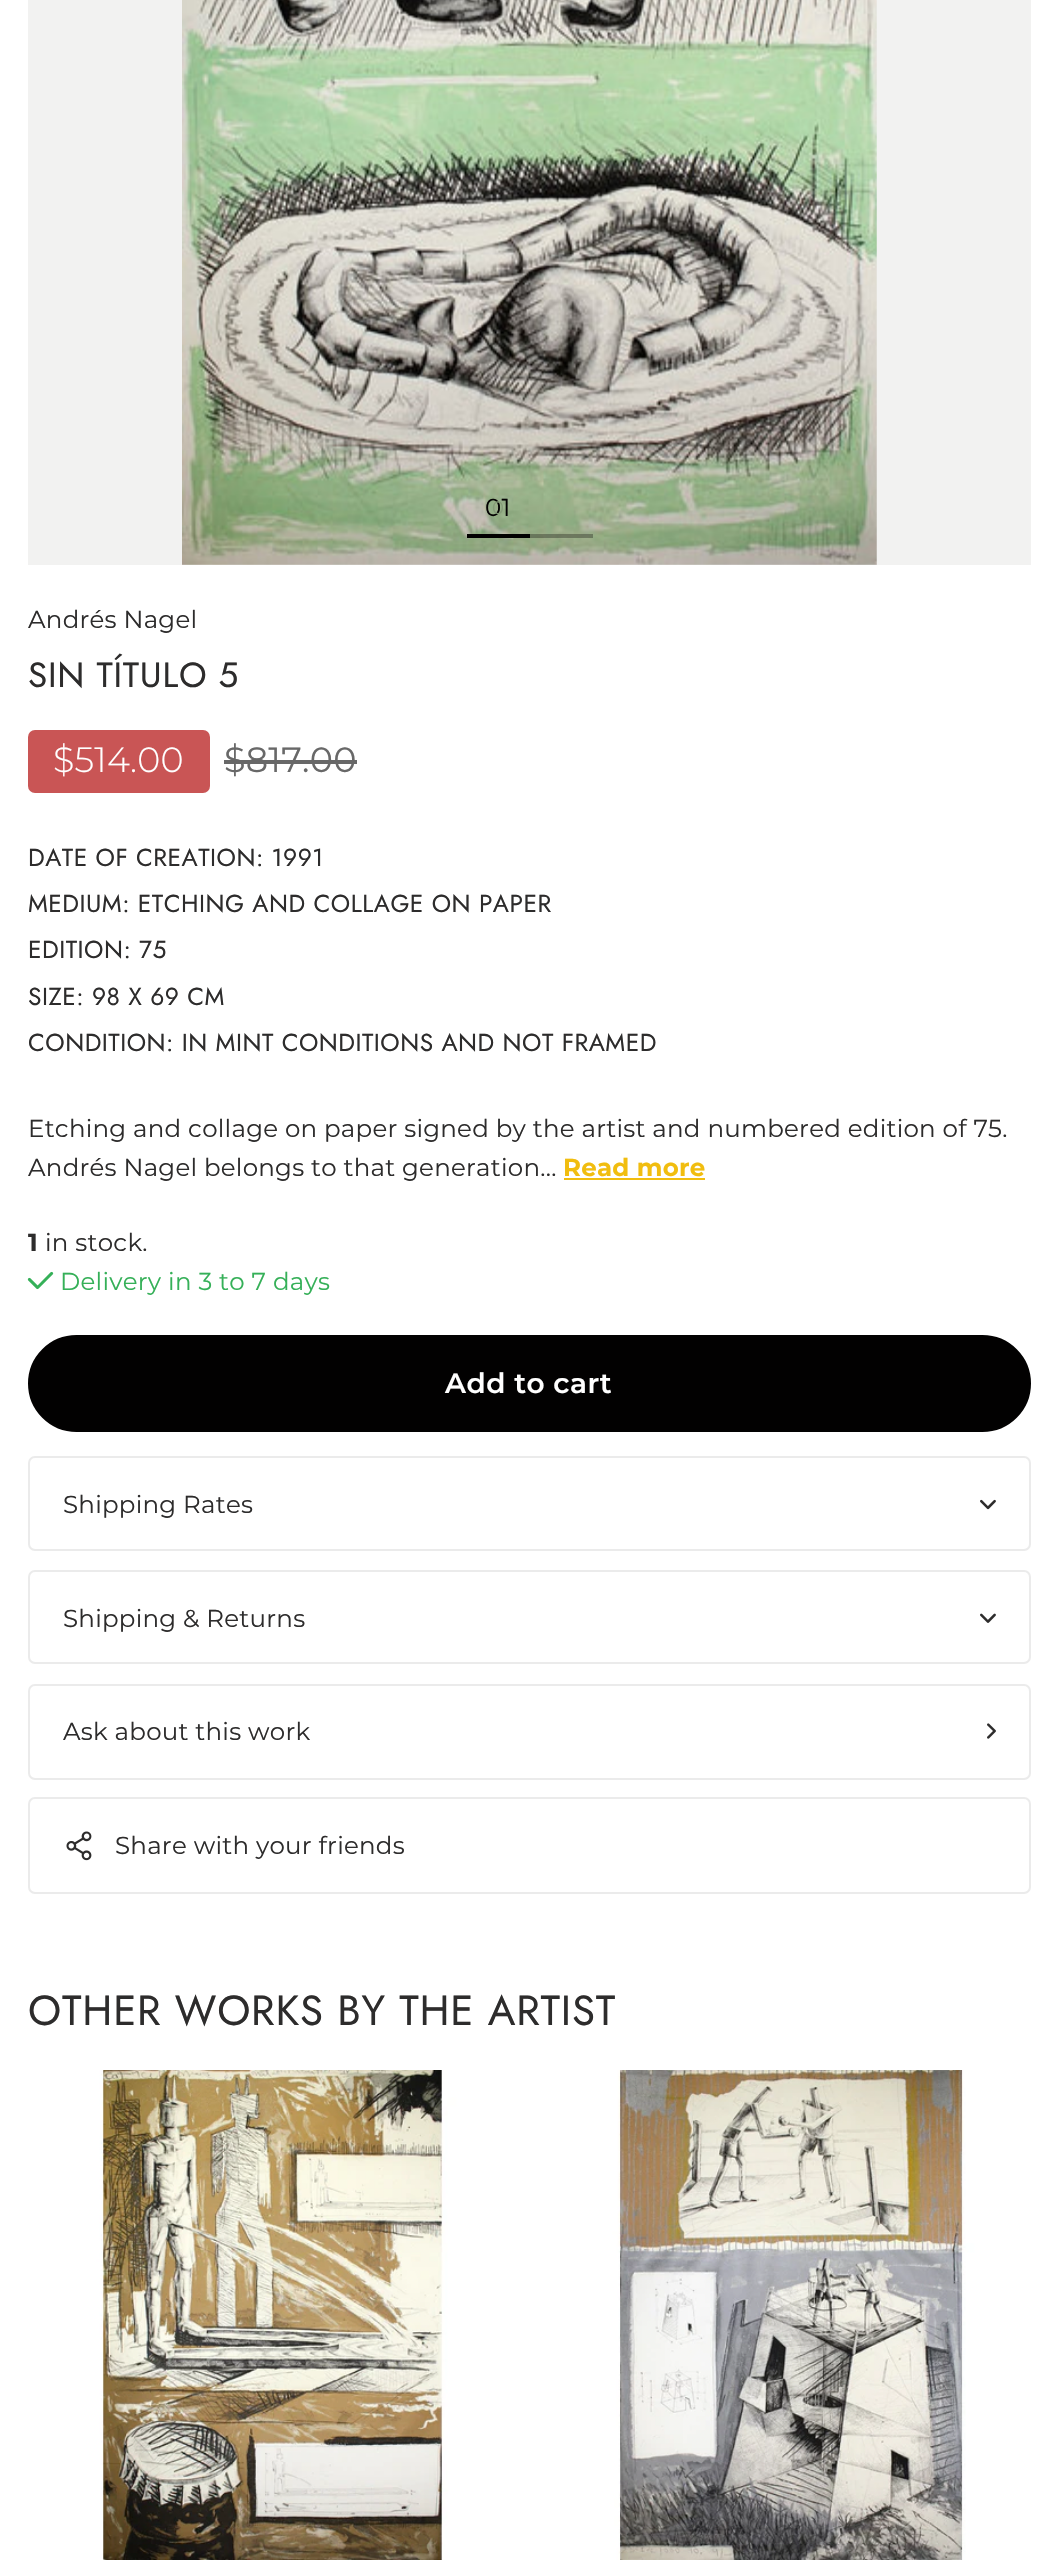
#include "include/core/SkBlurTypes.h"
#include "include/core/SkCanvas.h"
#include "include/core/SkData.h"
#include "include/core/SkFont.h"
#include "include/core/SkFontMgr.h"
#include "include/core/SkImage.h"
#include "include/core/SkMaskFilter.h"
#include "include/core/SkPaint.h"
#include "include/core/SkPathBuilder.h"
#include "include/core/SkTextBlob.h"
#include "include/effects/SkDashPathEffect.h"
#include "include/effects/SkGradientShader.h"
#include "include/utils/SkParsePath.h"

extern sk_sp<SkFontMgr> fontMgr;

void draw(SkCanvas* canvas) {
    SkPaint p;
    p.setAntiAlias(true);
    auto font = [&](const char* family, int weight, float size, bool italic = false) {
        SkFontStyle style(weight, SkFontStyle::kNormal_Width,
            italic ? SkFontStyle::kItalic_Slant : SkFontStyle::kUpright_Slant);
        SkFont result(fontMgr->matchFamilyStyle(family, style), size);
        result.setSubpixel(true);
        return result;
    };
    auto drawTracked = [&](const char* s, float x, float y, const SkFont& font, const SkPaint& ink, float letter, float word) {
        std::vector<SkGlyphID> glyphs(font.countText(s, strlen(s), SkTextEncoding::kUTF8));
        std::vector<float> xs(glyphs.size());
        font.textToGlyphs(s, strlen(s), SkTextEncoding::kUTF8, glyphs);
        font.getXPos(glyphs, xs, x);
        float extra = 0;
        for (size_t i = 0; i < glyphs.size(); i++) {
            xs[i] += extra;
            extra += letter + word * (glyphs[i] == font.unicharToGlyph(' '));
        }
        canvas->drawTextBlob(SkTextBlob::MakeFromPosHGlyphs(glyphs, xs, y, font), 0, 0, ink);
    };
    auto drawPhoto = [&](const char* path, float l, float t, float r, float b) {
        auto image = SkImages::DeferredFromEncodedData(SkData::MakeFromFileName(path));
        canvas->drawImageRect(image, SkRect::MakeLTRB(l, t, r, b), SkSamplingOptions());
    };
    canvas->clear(0xFFFFFFFF);
    p.setColor(0xFFF2F2F1);
    canvas->drawRect(SkRect::MakeLTRB(28, 0, 1031, 565), p);
    drawPhoto("media/1.png", 182, 0, 877, 565);
    auto font1 = font("Montserrat", 400, 24.5f);
    p.setColor(0xFF020101);
    drawTracked("01", 485, 516, font1, p, 0.25f, 0);
    auto font2 = font("Montserrat", 400, 18);
    p.setColor(0xFF849B77);
    canvas->drawString("0", 492, 514, font2, p);
    p.setColor(0xFF020101);
    canvas->drawRect(SkRect::MakeLTRB(467, 534, 530, 538), p);
    p.setColor(0x4D020101);
    canvas->drawRect(SkRect::MakeLTRB(530, 534, 593, 538), p);
    p.setColor(0xFF2D2C2C);
    drawTracked("Andrés Nagel", 28, 628, font1, p, 0.25f, 0);
    auto font3 = font("Jost", 400, 35);
    drawTracked("SIN TÍTULO 5", 28, 687, font3, p, 0.75f, 0);
    p.setColor(0xFFC95555);
    canvas->drawRoundRect(SkRect::MakeLTRB(28, 730, 210, 793), 7, 7, p);
    auto font4 = font("Montserrat", 300, 35);
    p.setColor(0xFFFFFFFF);
    drawTracked("$514.00", 53, 772, font4, p, 0.25f, 0);
    auto font5 = font("Montserrat", 400, 35);
    p.setColor(0xFF686868);
    drawTracked("$817.00", 224, 772, font5, p, 0.25f, 0);
    canvas->drawRect(SkRect::MakeLTRB(224, 760, 357, 764), p);
    auto font6 = font("Jost", 400, 24.5f);
    p.setColor(0xFF2D2C2C);
    {
        const struct { const char* s; float x, y; } items[] = {
            {"DATE OF CREATION: 1991", 28, 866},
            {"MEDIUM: ETCHING AND COLLAGE ON PAPER", 28, 912},
            {"EDITION: 75", 28, 958},
            {"SIZE: 98 X 69 CM", 28, 1005},
            {"CONDITION: IN MINT CONDITIONS AND NOT FRAMED", 28, 1051},
        };
        for (auto [s, x, y] : items) {
            drawTracked(s, x, y, font6, p, 0.5f, 0);
        }
    }
    drawTracked("Etching and collage on paper signed by the artist and numbered edition of 75.", 28, 1137, font1, p, 0.25f, 0);
    drawTracked("Andrés Nagel belongs to that generation...", 28, 1176, font1, p, 0.25f, 0);
    auto font7 = font("Montserrat", 700, 24.5f);
    p.setColor(0xFFF1BD0F);
    drawTracked("Read more", 563, 1176, font7, p, 0.25f, 0);
    canvas->drawRect(SkRect::MakeLTRB(564, 1178, 705, 1180), p);
    p.setColor(0xFF2D2C2C);
    drawTracked("1", 28, 1251, font7, p, 0.25f, 0);
    drawTracked("in stock.", 45, 1251, font1, p, 0.25f, 0);
    drawPhoto("media/2.png", 27, 1271, 54, 1290);
    p.setColor(0xFF35B058);
    drawTracked("Delivery in 3 to 7 days", 60, 1290, font1, p, 0.25f, 0);
    p.setColor(0xFF020101);
    canvas->drawRoundRect(SkRect::MakeLTRB(29, 1336, 1030, 1431), 47.5f, 47.5f, p);
    p.setStyle(SkPaint::kStroke_Style);
    p.setStrokeWidth(2);
    canvas->drawRoundRect(SkRect::MakeLTRB(29, 1336, 1030, 1431), 47.5f, 47.5f, p);
    auto font8 = font("Montserrat", 600, 28);
    p.setStyle(SkPaint::kFill_Style);
    p.setColor(0xFFFFFFFF);
    drawTracked("Add to cart", 445, 1393, font8, p, 0.5f, 0);
    p.setStyle(SkPaint::kStroke_Style);
    p.setColor(0xFFEBEBEB);
    canvas->drawRoundRect(SkRect::MakeLTRB(29, 1457, 1030, 1550), 6, 6, p);
    p.setStyle(SkPaint::kFill_Style);
    p.setColor(0xFF2D2C2C);
    drawTracked("Shipping Rates", 63, 1513, font1, p, 0.25f, 0);
    drawPhoto("media/3.png", 980, 1499, 996, 1510);
    p.setStyle(SkPaint::kStroke_Style);
    p.setColor(0xFFEBEBEB);
    canvas->drawRoundRect(SkRect::MakeLTRB(29, 1571, 1030, 1663), 6, 6, p);
    p.setStyle(SkPaint::kFill_Style);
    p.setColor(0xFF2D2C2C);
    drawTracked("Shipping & Returns", 63, 1627, font1, p, 0.25f, 0);
    drawPhoto("media/4.png", 980, 1613, 996, 1623);
    p.setStyle(SkPaint::kStroke_Style);
    p.setColor(0xFFEBEBEB);
    canvas->drawRoundRect(SkRect::MakeLTRB(29, 1685, 1030, 1779), 6, 6, p);
    p.setStyle(SkPaint::kFill_Style);
    p.setColor(0xFF2D2C2C);
    drawTracked("Ask about this work", 63, 1740, font1, p, 0.25f, 0);
    drawPhoto("media/5.png", 987, 1723, 996, 1739);
    p.setStyle(SkPaint::kStroke_Style);
    p.setColor(0xFFEBEBEB);
    canvas->drawRoundRect(SkRect::MakeLTRB(29, 1798, 1030, 1893), 6, 6, p);
    drawPhoto("media/6.png", 66, 1831, 92, 1861);
    p.setStyle(SkPaint::kFill_Style);
    p.setColor(0xFF2D2C2C);
    drawTracked("Share with your friends", 115, 1854, font1, p, 0.25f, 0);
    auto font9 = font("Jost", 400, 42);
    drawTracked("OTHER WORKS BY THE ARTIST", 28, 2025, font9, p, 0.8f, 0);
    drawPhoto("media/7.png", 28, 2070, 518, 2560);
    drawPhoto("media/8.png", 546, 2070, 1036, 2560);
}
